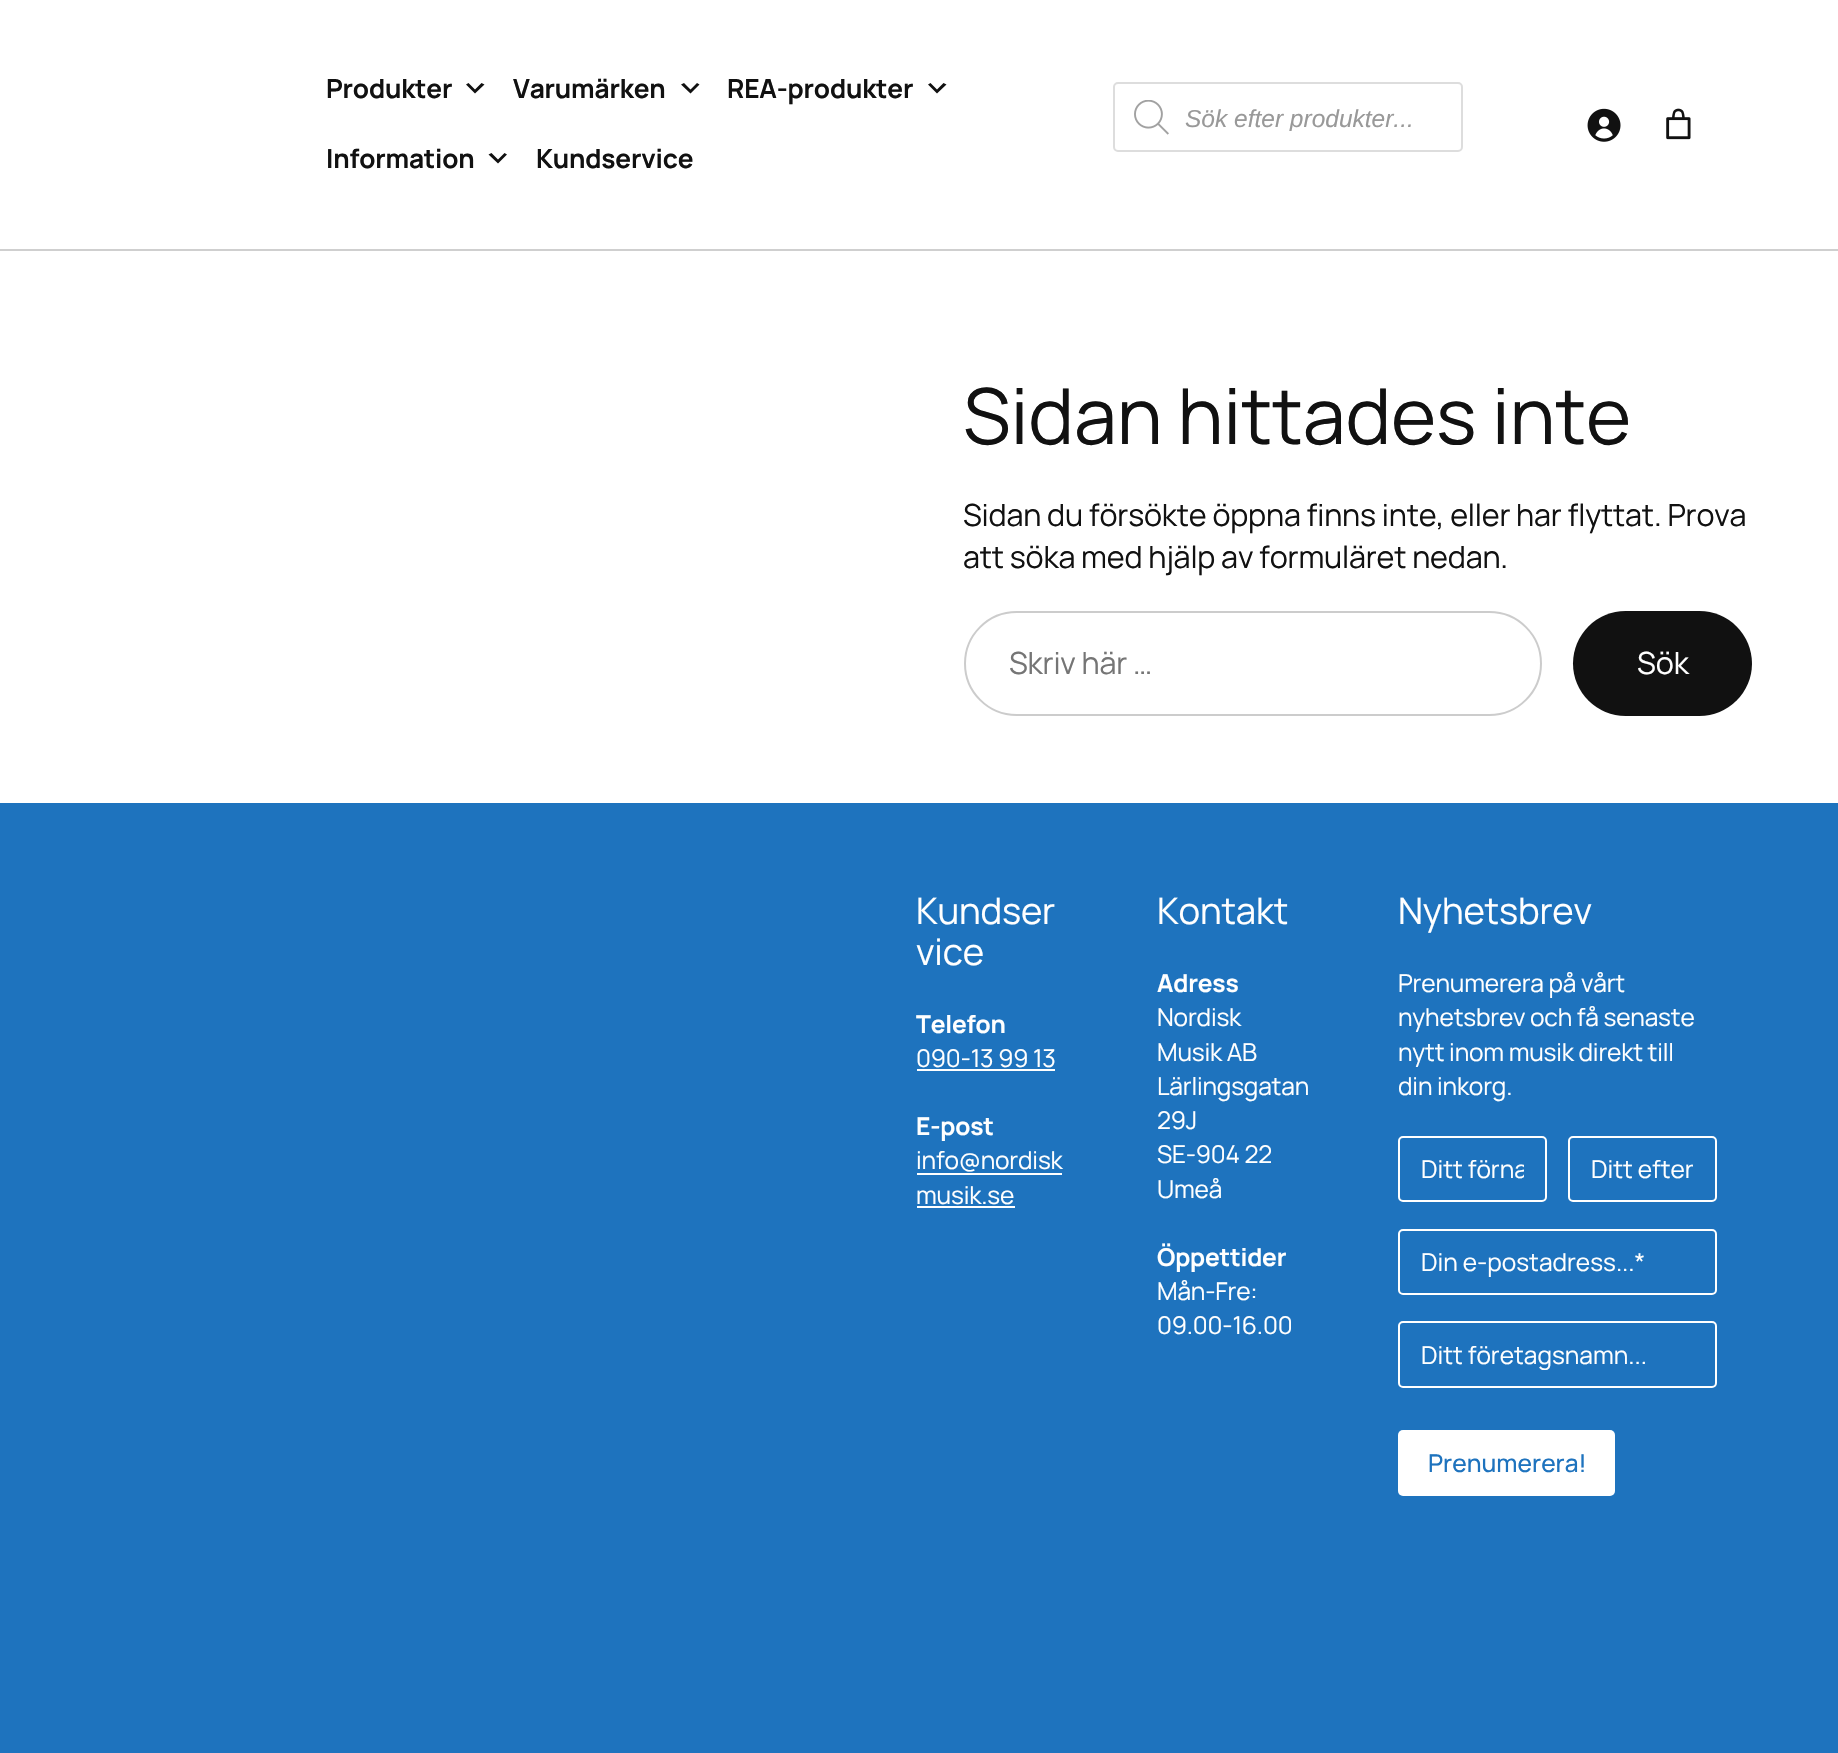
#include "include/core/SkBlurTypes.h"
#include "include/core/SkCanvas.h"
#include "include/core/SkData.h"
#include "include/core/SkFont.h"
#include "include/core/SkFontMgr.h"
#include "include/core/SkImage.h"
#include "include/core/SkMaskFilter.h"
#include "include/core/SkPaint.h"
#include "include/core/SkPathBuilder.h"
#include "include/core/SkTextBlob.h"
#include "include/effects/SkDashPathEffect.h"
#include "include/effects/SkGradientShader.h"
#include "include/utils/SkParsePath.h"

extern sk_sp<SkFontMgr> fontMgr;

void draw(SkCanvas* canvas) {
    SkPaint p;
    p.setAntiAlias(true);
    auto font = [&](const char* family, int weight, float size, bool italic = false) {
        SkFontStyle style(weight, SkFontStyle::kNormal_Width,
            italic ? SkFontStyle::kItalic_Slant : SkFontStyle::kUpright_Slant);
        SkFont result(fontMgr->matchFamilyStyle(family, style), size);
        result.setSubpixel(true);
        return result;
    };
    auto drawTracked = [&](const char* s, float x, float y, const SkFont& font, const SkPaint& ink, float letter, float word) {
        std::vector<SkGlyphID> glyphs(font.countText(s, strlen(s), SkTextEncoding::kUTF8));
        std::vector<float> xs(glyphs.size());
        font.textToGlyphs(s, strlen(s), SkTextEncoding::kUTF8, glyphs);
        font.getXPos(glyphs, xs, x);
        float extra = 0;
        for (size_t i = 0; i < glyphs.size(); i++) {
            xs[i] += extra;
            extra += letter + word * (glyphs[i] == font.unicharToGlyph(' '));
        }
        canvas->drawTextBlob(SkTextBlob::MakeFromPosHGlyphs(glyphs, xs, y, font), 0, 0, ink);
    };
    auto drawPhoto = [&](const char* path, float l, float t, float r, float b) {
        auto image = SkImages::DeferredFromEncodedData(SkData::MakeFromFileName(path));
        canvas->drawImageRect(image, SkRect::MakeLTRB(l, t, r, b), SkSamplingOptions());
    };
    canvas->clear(0xFFFFFFFF);
    p.setColor(0xFFCFCFCF);
    canvas->drawRect(SkRect::MakeLTRB(0, 249, 1838, 251), p);
    auto font1 = font("Manrope", 700, 26.25f);
    p.setColor(0xFF111111);
    drawTracked("Produkter", 326, 98, font1, p, -0.18f, 0);
    canvas->drawPath(SkPathBuilder().moveTo(468.5f, 83).lineTo(475, 89.5f).lineTo(481.5f, 83).lineTo(484.5f, 84.5f).lineTo(475, 93.5f).lineTo(466, 84.5f).close().detach(), p);
    drawTracked("Varumärken", 513, 98, font1, p, -0.18f, 0);
    canvas->drawPath(SkPathBuilder().moveTo(684, 83).lineTo(690.5f, 89.5f).lineTo(697, 83).lineTo(699.5f, 84.5f).lineTo(690.5f, 93.5f).lineTo(681, 84.5f).close().detach(), p);
    drawTracked("REA-produkter", 727, 98, font1, p, -0.18f, 0);
    canvas->drawPath(SkPathBuilder().moveTo(930.5f, 83).lineTo(937, 89.5f).lineTo(943.5f, 83).lineTo(946.5f, 84.5f).lineTo(937, 93.5f).lineTo(928, 84.5f).close().detach(), p);
    drawTracked("Information", 326, 168, font1, p, -0.18f, 0);
    canvas->drawPath(SkPathBuilder().moveTo(491.5f, 153).lineTo(498, 159.5f).lineTo(504.5f, 153).lineTo(507, 154.5f).lineTo(498, 163.5f).lineTo(488.5f, 154.5f).close().detach(), p);
    drawTracked("Kundservice", 536, 168, font1, p, -0.18f, 0);
    p.setStyle(SkPaint::kStroke_Style);
    p.setStrokeWidth(2);
    p.setColor(0xFFDDDDDD);
    canvas->drawRoundRect(SkRect::MakeLTRB(1114, 83, 1462, 151), 4, 4, p);
    drawPhoto("media/1.png", 1134, 100, 1169, 135);
    canvas->save();
    canvas->clipRect(SkRect::MakeLTRB(1185, 103, 1435, 131));
    auto font2 = font("Liberation Sans", 400, 24.5f, true);
    p.setStyle(SkPaint::kFill_Style);
    p.setColor(0xFF999999);
    canvas->drawString("Sök efter produkter...", 1185, 127, font2, p);
    canvas->restore();
    drawPhoto("media/2.png", 1587, 108, 1621, 142);
    drawPhoto("media/3.png", 1666, 108, 1691, 140);
    auto font3 = font("Manrope", 400, 77.25f);
    p.setColor(0xFF111111);
    drawTracked("Sidan hittades inte", 963, 444, font3, p, -0.18f, 0);
    auto font4 = font("Manrope", 400, 30.5f);
    drawTracked("Sidan du försökte öppna finns inte, eller har flyttat. Prova", 963, 526, font4, p, -0.18f, 0);
    drawTracked("att söka med hjälp av formuläret nedan.", 963, 568, font4, p, -0.18f, 0);
    p.setStyle(SkPaint::kStroke_Style);
    p.setColor(0xFFCCCCCC);
    canvas->drawRoundRect(SkRect::MakeLTRB(965, 612, 1541, 715), 51.5f, 51.5f, p);
    p.setStyle(SkPaint::kFill_Style);
    p.setColor(0xFF757575);
    drawTracked("Skriv här …", 1009, 674, font4, p, -0.18f, 0);
    p.setColor(0xFF111111);
    canvas->drawRoundRect(SkRect::MakeLTRB(1573, 611, 1752, 716), 52.5f, 52.5f, p);
    p.setColor(0xFFFFFFFF);
    canvas->drawString("Sök", 1637, 674, font4, p);
    p.setColor(0xFF1E73BE);
    canvas->drawRect(SkRect::MakeLTRB(0, 803, 1838, 1753), p);
    auto font5 = font("Manrope", 400, 36.5f);
    p.setColor(0xFFFFFFFF);
    drawTracked("Kundser", 916, 924, font5, p, -0.18f, 0);
    drawTracked("vice", 916, 965, font5, p, -0.18f, 0);
    auto font6 = font("Manrope", 700, 24.5f);
    drawTracked("Telefon", 916, 1033, font6, p, -0.18f, 0);
    auto font7 = font("Manrope", 400, 24.5f);
    drawTracked("090-13 99 13", 916, 1067, font7, p, -0.18f, 0);
    canvas->drawRect(SkRect::MakeLTRB(917, 1069, 1055, 1071), p);
    drawTracked("E-post", 916, 1135, font6, p, -0.18f, 0);
    drawTracked("info@nordisk", 916, 1169, font7, p, -0.18f, 0);
    canvas->drawRect(SkRect::MakeLTRB(917, 1173, 1062, 1175), p);
    drawTracked("musik.se", 916, 1204, font7, p, -0.18f, 0);
    canvas->drawRect(SkRect::MakeLTRB(917, 1206, 1015, 1208), p);
    drawTracked("Kontakt", 1157, 924, font5, p, -0.18f, 0);
    drawTracked("Adress", 1157, 992, font6, p, -0.18f, 0);
    {
        const struct { const char* s; float x, y; } items[] = {
            {"Nordisk", 1157, 1026},
            {"Musik AB", 1157, 1061},
            {"Lärlingsgatan", 1157, 1095},
            {"29J", 1157, 1129},
            {"SE-904 22", 1157, 1163},
            {"Umeå", 1157, 1198},
        };
        for (auto [s, x, y] : items) {
            drawTracked(s, x, y, font7, p, -0.18f, 0);
        }
    }
    drawTracked("Öppettider", 1157, 1266, font6, p, -0.18f, 0);
    drawTracked("Mån-Fre:", 1157, 1300, font7, p, -0.18f, 0);
    drawTracked("09.00-16.00", 1157, 1334, font7, p, -0.18f, 0);
    drawTracked("Nyhetsbrev", 1398, 924, font5, p, -0.18f, 0);
    {
        const struct { const char* s; float x, y; } items[] = {
            {"Prenumerera på vårt", 1398, 992},
            {"nyhetsbrev och få senaste", 1398, 1026},
            {"nytt inom musik direkt till", 1398, 1061},
            {"din inkorg.", 1398, 1095},
        };
        for (auto [s, x, y] : items) {
            drawTracked(s, x, y, font7, p, -0.18f, 0);
        }
    }
    p.setStyle(SkPaint::kStroke_Style);
    canvas->drawRoundRect(SkRect::MakeLTRB(1399, 1137, 1546, 1201), 4, 4, p);
    canvas->save();
    canvas->clipRect(SkRect::MakeLTRB(1421, 1152, 1524, 1185));
    p.setStyle(SkPaint::kFill_Style);
    canvas->drawString("Ditt förna", 1421, 1178, font7, p);
    canvas->restore();
    p.setStyle(SkPaint::kStroke_Style);
    canvas->drawRoundRect(SkRect::MakeLTRB(1569, 1137, 1716, 1201), 4, 4, p);
    p.setStyle(SkPaint::kFill_Style);
    canvas->drawString("Ditt efter", 1591, 1178, font7, p);
    p.setStyle(SkPaint::kStroke_Style);
    canvas->drawRoundRect(SkRect::MakeLTRB(1399, 1230, 1716, 1294), 4, 4, p);
    p.setStyle(SkPaint::kFill_Style);
    canvas->drawString("Din e-postadress...*", 1421, 1271, font7, p);
    p.setStyle(SkPaint::kStroke_Style);
    canvas->drawRoundRect(SkRect::MakeLTRB(1399, 1322, 1716, 1387), 4, 4, p);
    canvas->save();
    canvas->clipRect(SkRect::MakeLTRB(1421, 1337, 1694, 1370));
    p.setStyle(SkPaint::kFill_Style);
    canvas->drawString("Ditt företagsnamn...", 1421, 1364, font7, p);
    canvas->restore();
    canvas->drawRoundRect(SkRect::MakeLTRB(1398, 1430, 1615, 1496), 5, 5, p);
    auto font8 = font("Manrope", 500, 24.5f);
    p.setColor(0xFF1E73BE);
    canvas->drawString("Prenumerera!", 1428, 1472, font8, p);
}
